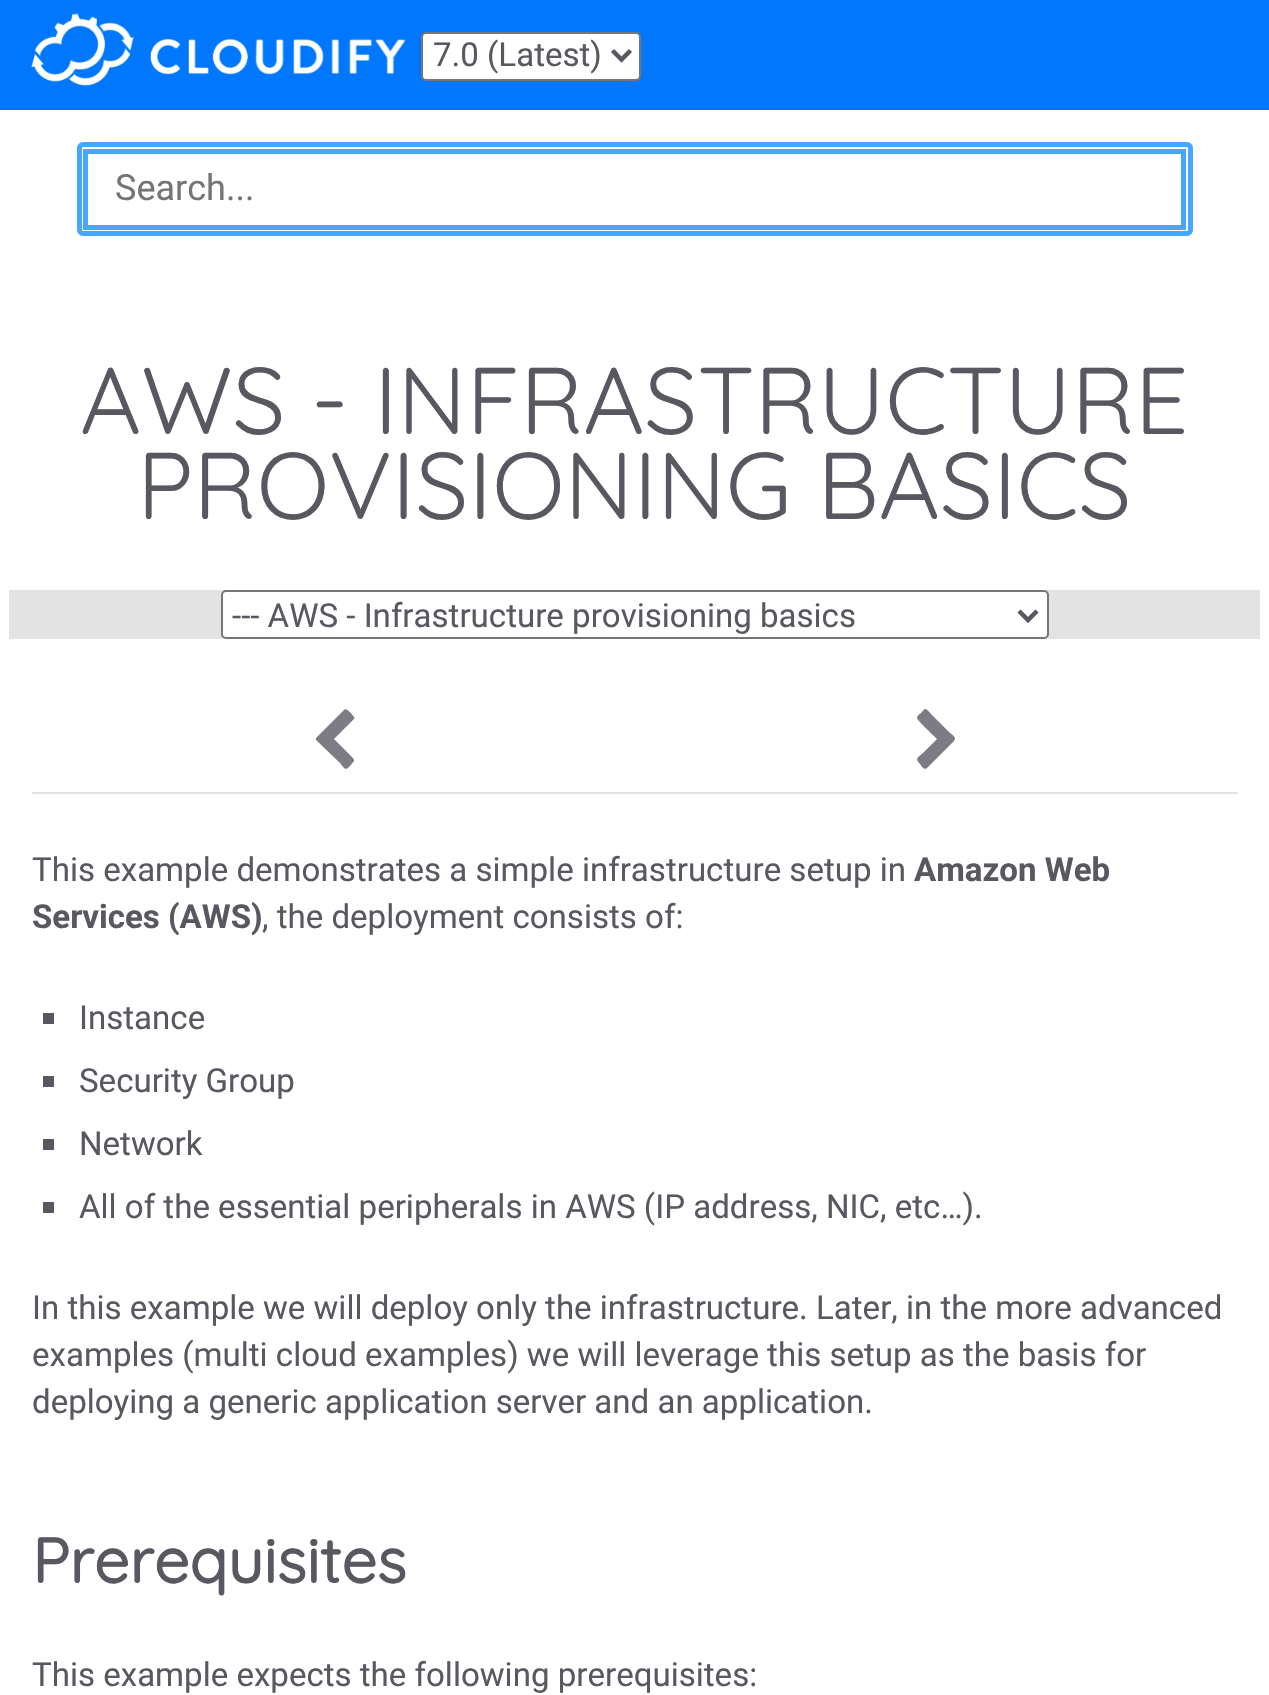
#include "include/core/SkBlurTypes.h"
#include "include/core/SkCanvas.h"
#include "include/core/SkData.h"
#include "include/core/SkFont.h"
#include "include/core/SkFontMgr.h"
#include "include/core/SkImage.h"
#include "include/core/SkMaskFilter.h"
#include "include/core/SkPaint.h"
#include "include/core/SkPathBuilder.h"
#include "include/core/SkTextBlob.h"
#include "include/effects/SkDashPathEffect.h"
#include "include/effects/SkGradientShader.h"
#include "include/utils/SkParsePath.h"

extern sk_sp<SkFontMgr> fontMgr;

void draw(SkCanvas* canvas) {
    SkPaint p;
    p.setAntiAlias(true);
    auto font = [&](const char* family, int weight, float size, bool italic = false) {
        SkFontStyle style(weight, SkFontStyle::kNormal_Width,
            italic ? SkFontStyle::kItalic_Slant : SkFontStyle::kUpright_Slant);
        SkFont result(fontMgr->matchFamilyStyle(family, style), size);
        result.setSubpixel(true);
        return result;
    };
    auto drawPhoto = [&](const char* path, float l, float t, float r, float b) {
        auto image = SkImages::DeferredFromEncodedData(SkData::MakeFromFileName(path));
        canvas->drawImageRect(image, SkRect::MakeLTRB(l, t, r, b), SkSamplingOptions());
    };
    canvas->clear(0xFFFFFFFF);
    p.setColor(0xFF0077FC);
    canvas->drawRect(SkRect::MakeLTRB(0, 0, 1269, 110), p);
    drawPhoto("media/1.png", 31, 13, 406, 86);
    p.setColor(0xFFFFFFFF);
    canvas->drawRoundRect(SkRect::MakeLTRB(422, 33, 640, 80), 4, 4, p);
    p.setStyle(SkPaint::kStroke_Style);
    p.setStrokeWidth(2);
    p.setColor(0xFF767676);
    canvas->drawRoundRect(SkRect::MakeLTRB(422, 33, 640, 80), 4, 4, p);
    p.setStrokeWidth(4.5f);
    p.setColor(0xFF585860);
    canvas->drawPath(SkPathBuilder().moveTo(612.5f, 50.5f).lineTo(621.5f, 59.5f).lineTo(630.5f, 50.5f).detach(), p);
    auto font1 = font("Roboto", 400, 33.05f);
    p.setStyle(SkPaint::kFill_Style);
    canvas->drawString("7.0 (Latest)", 433, 66, font1, p);
    p.setStyle(SkPaint::kStroke_Style);
    p.setStrokeWidth(5);
    p.setColor(0xFF45A7FF);
    canvas->drawRoundRect(SkRect::MakeLTRB(79.5f, 144.5f, 1190.5f, 233.5f), 3.5f, 3.5f, p);
    canvas->drawRect(SkRect::MakeLTRB(85.5f, 151.5f, 1183.5f, 227.5f), p);
    auto font2 = font("Roboto", 400, 36);
    p.setStyle(SkPaint::kFill_Style);
    p.setColor(0xFF757575);
    canvas->drawString("Search...", 115, 200, font2, p);
    auto font3 = font("Quicksand", 300, 94.5f);
    p.setColor(0xFF585860);
    canvas->drawString("AWS - INFRASTRUCTURE", 80, 434, font3, p);
    canvas->drawString("PROVISIONING BASICS", 137, 519, font3, p);
    p.setColor(0xFFE3E3E3);
    canvas->drawRect(SkRect::MakeLTRB(9, 590, 1260, 639), p);
    p.setColor(0xFFFFFFFF);
    canvas->drawRoundRect(SkRect::MakeLTRB(222, 591, 1048, 638), 4, 4, p);
    p.setStyle(SkPaint::kStroke_Style);
    p.setStrokeWidth(2);
    p.setColor(0xFF767676);
    canvas->drawRoundRect(SkRect::MakeLTRB(222, 591, 1048, 638), 4, 4, p);
    p.setStrokeWidth(4.5f);
    p.setColor(0xFF585860);
    canvas->drawPath(SkPathBuilder().moveTo(1019, 611).lineTo(1028, 620).lineTo(1037, 611).detach(), p);
    p.setStyle(SkPaint::kFill_Style);
    canvas->drawString("--- AWS - Infrastructure provisioning basics", 232, 627, font1, p);
    p.setColor(0xFFE3E3E3);
    canvas->drawRect(SkRect::MakeLTRB(32, 792, 1238, 794), p);
    p.setColor(0xFF7C7C84);
    canvas->drawPath(SkPathBuilder().moveTo(354, 719).lineTo(334, 739).lineTo(350, 755).cubicTo(356, 761, 355, 760, 350, 766).cubicTo(345, 771, 345, 769, 340, 763).lineTo(316, 740).lineTo(316, 738).lineTo(344, 710).cubicTo(346, 708, 348, 711, 350, 712).lineTo(354, 717).cubicTo(355, 718, 354, 719, 354, 719).close().detach(), p);
    canvas->drawPath(SkPathBuilder().moveTo(954, 741).lineTo(927, 768).cubicTo(924, 771, 921, 765, 920, 764).cubicTo(914, 758, 918, 758, 924, 752).lineTo(937, 739).cubicTo(934, 736, 917, 720, 917, 718).cubicTo(917, 716, 919, 714, 921, 713).cubicTo(926, 707, 925, 708, 932, 715).lineTo(950, 733).cubicTo(950, 733, 956, 737, 955, 739).close().detach(), p);
    p.setColor(0xFF585860);
    canvas->drawString("This example demonstrates a simple infrastructure setup in", 32, 881, font1, p);
    auto font4 = font("Roboto", 700, 33.05f);
    canvas->drawString("Amazon Web", 914, 881, font4, p);
    canvas->drawString("Services (AWS)", 32, 928, font4, p);
    canvas->drawString(", the deployment consists of:", 262, 928, font1, p);
    canvas->drawRect(SkRect::MakeLTRB(43, 1013, 54, 1024), p);
    canvas->drawString("Instance", 79, 1029, font1, p);
    canvas->drawRect(SkRect::MakeLTRB(43, 1076, 54, 1087), p);
    canvas->drawString("Security Group", 79, 1092, font1, p);
    canvas->drawRect(SkRect::MakeLTRB(43, 1139, 54, 1150), p);
    canvas->drawString("Network", 79, 1155, font1, p);
    canvas->drawRect(SkRect::MakeLTRB(43, 1202, 54, 1213), p);
    {
        const struct { const char* s; float x, y; } items[] = {
            {"All of the essential peripherals in AWS (IP address, NIC, etc…).", 79, 1218},
            {"In this example we will deploy only the infrastructure. Later, in the more advanced", 32, 1319},
            {"examples (multi cloud examples) we will leverage this setup as the basis for", 32, 1366},
            {"deploying a generic application server and an application.", 32, 1413},
        };
        for (auto [s, x, y] : items) {
            canvas->drawString(s, x, y, font1, p);
        }
    }
    auto font5 = font("Quicksand", 700, 63);
    canvas->drawString("Prerequisites", 32, 1583, font5, p);
    canvas->drawString("This example expects the following prerequisites:", 32, 1686, font1, p);
}
